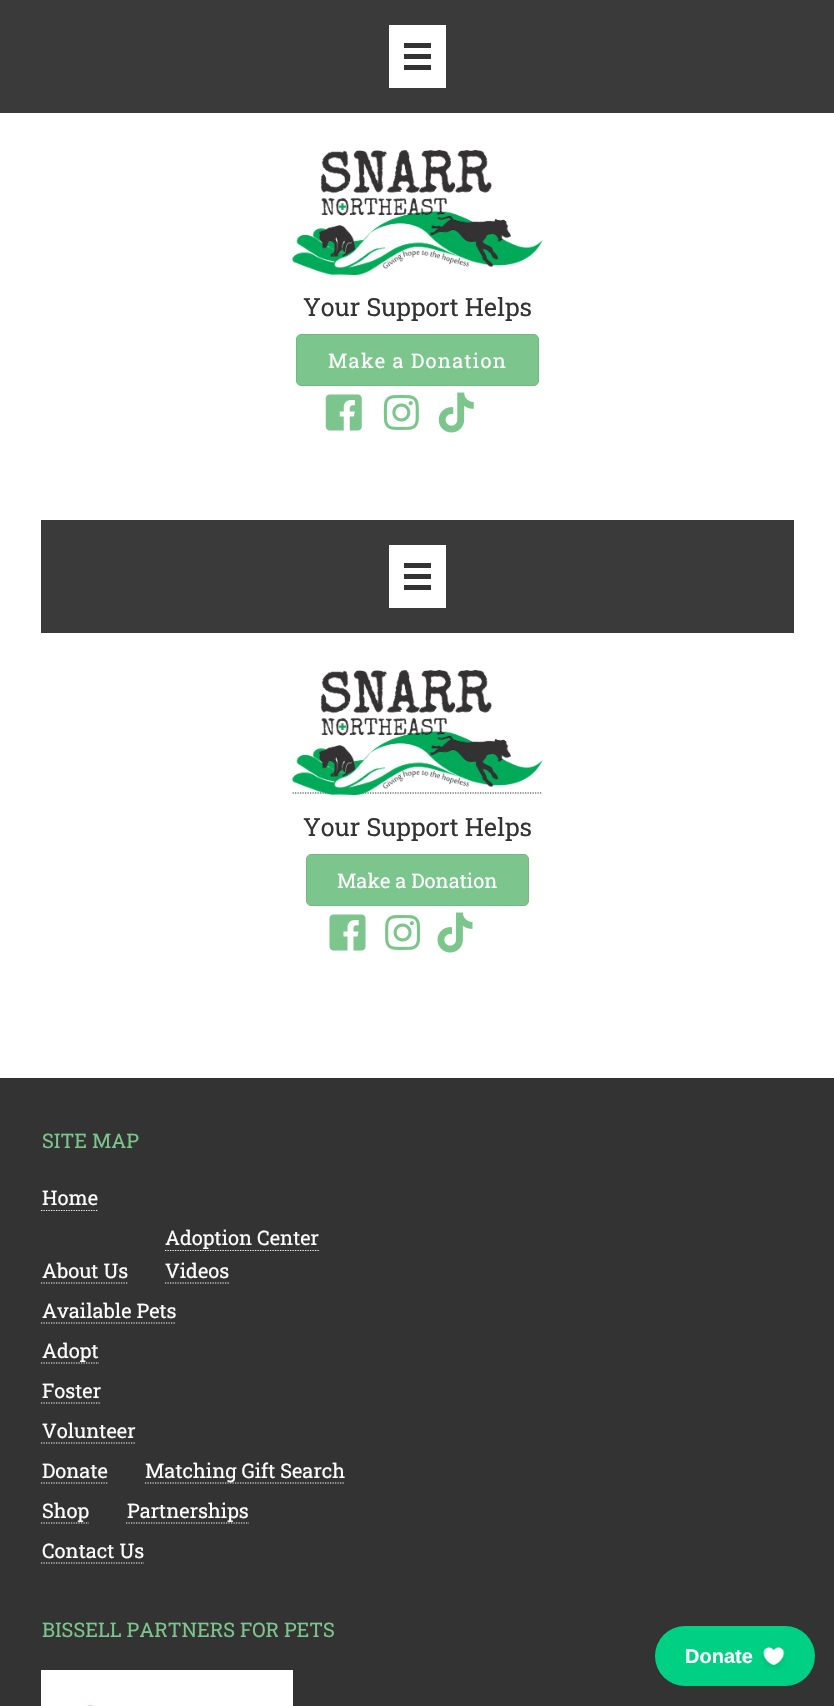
#include "include/core/SkBlurTypes.h"
#include "include/core/SkCanvas.h"
#include "include/core/SkData.h"
#include "include/core/SkFont.h"
#include "include/core/SkFontMgr.h"
#include "include/core/SkImage.h"
#include "include/core/SkMaskFilter.h"
#include "include/core/SkPaint.h"
#include "include/core/SkPathBuilder.h"
#include "include/core/SkTextBlob.h"
#include "include/effects/SkDashPathEffect.h"
#include "include/effects/SkGradientShader.h"
#include "include/utils/SkParsePath.h"

extern sk_sp<SkFontMgr> fontMgr;

void draw(SkCanvas* canvas) {
    SkPaint p;
    p.setAntiAlias(true);
    auto font = [&](const char* family, int weight, float size, bool italic = false) {
        SkFontStyle style(weight, SkFontStyle::kNormal_Width,
            italic ? SkFontStyle::kItalic_Slant : SkFontStyle::kUpright_Slant);
        SkFont result(fontMgr->matchFamilyStyle(family, style), size);
        result.setSubpixel(true);
        return result;
    };
    auto drawTracked = [&](const char* s, float x, float y, const SkFont& font, const SkPaint& ink, float letter, float word) {
        std::vector<SkGlyphID> glyphs(font.countText(s, strlen(s), SkTextEncoding::kUTF8));
        std::vector<float> xs(glyphs.size());
        font.textToGlyphs(s, strlen(s), SkTextEncoding::kUTF8, glyphs);
        font.getXPos(glyphs, xs, x);
        float extra = 0;
        for (size_t i = 0; i < glyphs.size(); i++) {
            xs[i] += extra;
            extra += letter + word * (glyphs[i] == font.unicharToGlyph(' '));
        }
        canvas->drawTextBlob(SkTextBlob::MakeFromPosHGlyphs(glyphs, xs, y, font), 0, 0, ink);
    };
    auto drawPhoto = [&](const char* path, float l, float t, float r, float b) {
        auto image = SkImages::DeferredFromEncodedData(SkData::MakeFromFileName(path));
        canvas->drawImageRect(image, SkRect::MakeLTRB(l, t, r, b), SkSamplingOptions());
    };
    canvas->clear(0xFFFFFFFF);
    {
        const struct { float l, t, r, b; SkColor color; } items[] = {
            {0, 0, 834, 113, 0xFF3A3A3A},
            {389, 25, 446, 88, 0xFFFFFFFF},
            {404, 43, 431, 48, 0xFF333333},
            {404, 54, 431, 59, 0xFF333333},
            {404, 65, 431, 70, 0xFF333333},
        };
        for (auto [l, t, r, b, color] : items) {
            p.setColor(color);
            canvas->drawRect(SkRect::MakeLTRB(l, t, r, b), p);
        }
    }
    drawPhoto("media/1.png", 292, 150, 543, 275);
    auto font1 = font("Roboto Slab", 400, 25);
    canvas->drawString("Your Support Helps", 303, 316, font1, p);
    p.setColor(0xFF7CC68D);
    canvas->drawRoundRect(SkRect::MakeLTRB(296.5f, 334.5f, 538.5f, 385.5f), 4.5f, 4.5f, p);
    p.setStyle(SkPaint::kStroke_Style);
    p.setStrokeWidth(1);
    p.setColor(0xFF70BA81);
    canvas->drawRoundRect(SkRect::MakeLTRB(296.5f, 334.5f, 538.5f, 385.5f), 4.5f, 4.5f, p);
    auto font2 = font("Roboto Slab", 400, 20);
    p.setStyle(SkPaint::kFill_Style);
    p.setColor(0xFFFFFFFF);
    drawTracked("Make a Donation", 328, 368, font2, p, 1.25f, 0);
    drawPhoto("media/2.png", 325, 394, 362, 431);
    drawPhoto("media/3.png", 383, 395, 419, 430);
    drawPhoto("media/4.png", 438, 392, 474, 433);
    {
        const struct { float l, t, r, b; SkColor color; } items[] = {
            {41, 520, 794, 633, 0xFF3A3A3A},
            {389, 545, 446, 608, 0xFFFFFFFF},
            {404, 563, 431, 568, 0xFF333333},
            {404, 574, 431, 579, 0xFF333333},
            {404, 585, 431, 590, 0xFF333333},
        };
        for (auto [l, t, r, b, color] : items) {
            p.setColor(color);
            canvas->drawRect(SkRect::MakeLTRB(l, t, r, b), p);
        }
    }
    p.setStyle(SkPaint::kStroke_Style);
    p.setStrokeWidth(1.2f);
    p.setPathEffect(SkDashPathEffect::Make({{1.25f, 1.25f}}, 0));
    canvas->drawPath(SkPathBuilder().moveTo(292.5f, 793).lineTo(542.5f, 793).detach(), p);
    p.setPathEffect(nullptr);
    drawPhoto("media/5.png", 292, 670, 543, 795);
    p.setStyle(SkPaint::kFill_Style);
    canvas->drawString("Your Support Helps", 303, 836, font1, p);
    p.setColor(0xFF7CC68D);
    canvas->drawRoundRect(SkRect::MakeLTRB(306.5f, 854.5f, 528.5f, 905.5f), 4.5f, 4.5f, p);
    p.setStyle(SkPaint::kStroke_Style);
    p.setStrokeWidth(1);
    p.setColor(0xFF70BA81);
    canvas->drawRoundRect(SkRect::MakeLTRB(306.5f, 854.5f, 528.5f, 905.5f), 4.5f, 4.5f, p);
    p.setStyle(SkPaint::kFill_Style);
    p.setColor(0xFFFFFFFF);
    canvas->drawString("Make a Donation", 337, 888, font2, p);
    drawPhoto("media/6.png", 329, 914, 366, 951);
    drawPhoto("media/7.png", 385, 915, 421, 950);
    drawPhoto("media/8.png", 437, 912, 473, 953);
    p.setColor(0xFF333333);
    canvas->drawRect(SkRect::MakeLTRB(0, 1078, 834, 1706), p);
    p.setColor(0xFF7CC68D);
    canvas->drawString("SITE MAP", 42, 1148, font2, p);
    p.setColor(0xFFFFFFFF);
    canvas->drawString("Home", 42, 1205, font2, p);
    p.setStyle(SkPaint::kStroke_Style);
    p.setStrokeWidth(1.2f);
    p.setPathEffect(SkDashPathEffect::Make({{1.25f, 1.25f}}, 0));
    canvas->drawPath(SkPathBuilder().moveTo(41, 1210.5f).lineTo(97.5f, 1210.5f).detach(), p);
    p.setPathEffect(nullptr);
    p.setStyle(SkPaint::kFill_Style);
    canvas->drawString("About Us", 42, 1278, font2, p);
    p.setStyle(SkPaint::kStroke_Style);
    p.setPathEffect(SkDashPathEffect::Make({{1.25f, 1.25f}}, 0));
    canvas->drawPath(SkPathBuilder().moveTo(41, 1283).lineTo(127.5f, 1283).detach(), p);
    p.setPathEffect(nullptr);
    p.setPathEffect(SkDashPathEffect::Make({{1.25f, 1.25f}}, 0));
    canvas->drawPath(SkPathBuilder().moveTo(165, 1250.5f).lineTo(320, 1250.5f).detach(), p);
    p.setPathEffect(nullptr);
    p.setStyle(SkPaint::kFill_Style);
    canvas->drawString("Adoption Center", 165, 1245, font2, p);
    canvas->drawString("Videos", 165, 1278, font2, p);
    p.setStyle(SkPaint::kStroke_Style);
    p.setPathEffect(SkDashPathEffect::Make({{1.25f, 1.25f}}, 0));
    canvas->drawPath(SkPathBuilder().moveTo(165, 1283).lineTo(230, 1283).detach(), p);
    p.setPathEffect(nullptr);
    p.setStyle(SkPaint::kFill_Style);
    canvas->drawString("Available Pets", 42, 1318, font2, p);
    p.setStyle(SkPaint::kStroke_Style);
    p.setPathEffect(SkDashPathEffect::Make({{1.25f, 1.25f}}, 0));
    canvas->drawPath(SkPathBuilder().moveTo(41, 1323).lineTo(176, 1323).detach(), p);
    p.setPathEffect(nullptr);
    p.setPathEffect(SkDashPathEffect::Make({{1.25f, 1.25f}}, 0));
    canvas->drawPath(SkPathBuilder().moveTo(41, 1363).lineTo(99, 1363).detach(), p);
    p.setPathEffect(nullptr);
    p.setStyle(SkPaint::kFill_Style);
    canvas->drawString("Adopt", 42, 1358, font2, p);
    canvas->drawString("Foster", 42, 1398, font2, p);
    p.setStyle(SkPaint::kStroke_Style);
    p.setPathEffect(SkDashPathEffect::Make({{1.25f, 1.25f}}, 0));
    canvas->drawPath(SkPathBuilder().moveTo(41, 1403).lineTo(101, 1403).detach(), p);
    p.setPathEffect(nullptr);
    p.setStyle(SkPaint::kFill_Style);
    canvas->drawString("Volunteer", 42, 1438, font2, p);
    p.setStyle(SkPaint::kStroke_Style);
    p.setPathEffect(SkDashPathEffect::Make({{1.25f, 1.25f}}, 0));
    canvas->drawPath(SkPathBuilder().moveTo(41, 1443).lineTo(135, 1443).detach(), p);
    p.setPathEffect(nullptr);
    p.setStyle(SkPaint::kFill_Style);
    canvas->drawString("Donate", 42, 1478, font2, p);
    p.setStyle(SkPaint::kStroke_Style);
    p.setPathEffect(SkDashPathEffect::Make({{1.25f, 1.25f}}, 0));
    canvas->drawPath(SkPathBuilder().moveTo(41, 1483).lineTo(107.5f, 1483).detach(), p);
    p.setPathEffect(nullptr);
    p.setPathEffect(SkDashPathEffect::Make({{1.25f, 1.25f}}, 0));
    canvas->drawPath(SkPathBuilder().moveTo(145, 1483).lineTo(345, 1483).detach(), p);
    p.setPathEffect(nullptr);
    p.setStyle(SkPaint::kFill_Style);
    canvas->drawString("Matching Gift Search", 145, 1478, font2, p);
    p.setStyle(SkPaint::kStroke_Style);
    p.setPathEffect(SkDashPathEffect::Make({{1.25f, 1.25f}}, 0));
    canvas->drawPath(SkPathBuilder().moveTo(41, 1523).lineTo(89, 1523).detach(), p);
    p.setPathEffect(nullptr);
    p.setStyle(SkPaint::kFill_Style);
    canvas->drawString("Shop", 42, 1518, font2, p);
    p.setStyle(SkPaint::kStroke_Style);
    p.setPathEffect(SkDashPathEffect::Make({{1.25f, 1.25f}}, 0));
    canvas->drawPath(SkPathBuilder().moveTo(126, 1523).lineTo(249, 1523).detach(), p);
    p.setPathEffect(nullptr);
    p.setStyle(SkPaint::kFill_Style);
    canvas->drawString("Partnerships", 127, 1518, font2, p);
    canvas->drawString("Contact Us", 42, 1558, font2, p);
    p.setStyle(SkPaint::kStroke_Style);
    p.setPathEffect(SkDashPathEffect::Make({{1.25f, 1.25f}}, 0));
    canvas->drawPath(SkPathBuilder().moveTo(41, 1563).lineTo(144, 1563).detach(), p);
    p.setPathEffect(nullptr);
    p.setStyle(SkPaint::kFill_Style);
    p.setColor(0xFF7CC68D);
    canvas->drawString("BISSELL PARTNERS FOR PETS", 42, 1637, font2, p);
    p.setColor(0xFFFFFFFF);
    canvas->drawRect(SkRect::MakeLTRB(41, 1670, 293, 1706), p);
    drawPhoto("media/9.png", 87, 1705, 94, 1706);
    p.setColor(0xFF00D084);
    canvas->drawRoundRect(SkRect::MakeLTRB(655, 1626, 815, 1686), 30, 30, p);
    auto font3 = font("Liberation Sans", 700, 20);
    p.setColor(0xFFFFFFFF);
    canvas->drawString("Donate", 685, 1663, font3, p);
    drawPhoto("media/10.png", 761, 1647, 786, 1670);
}
